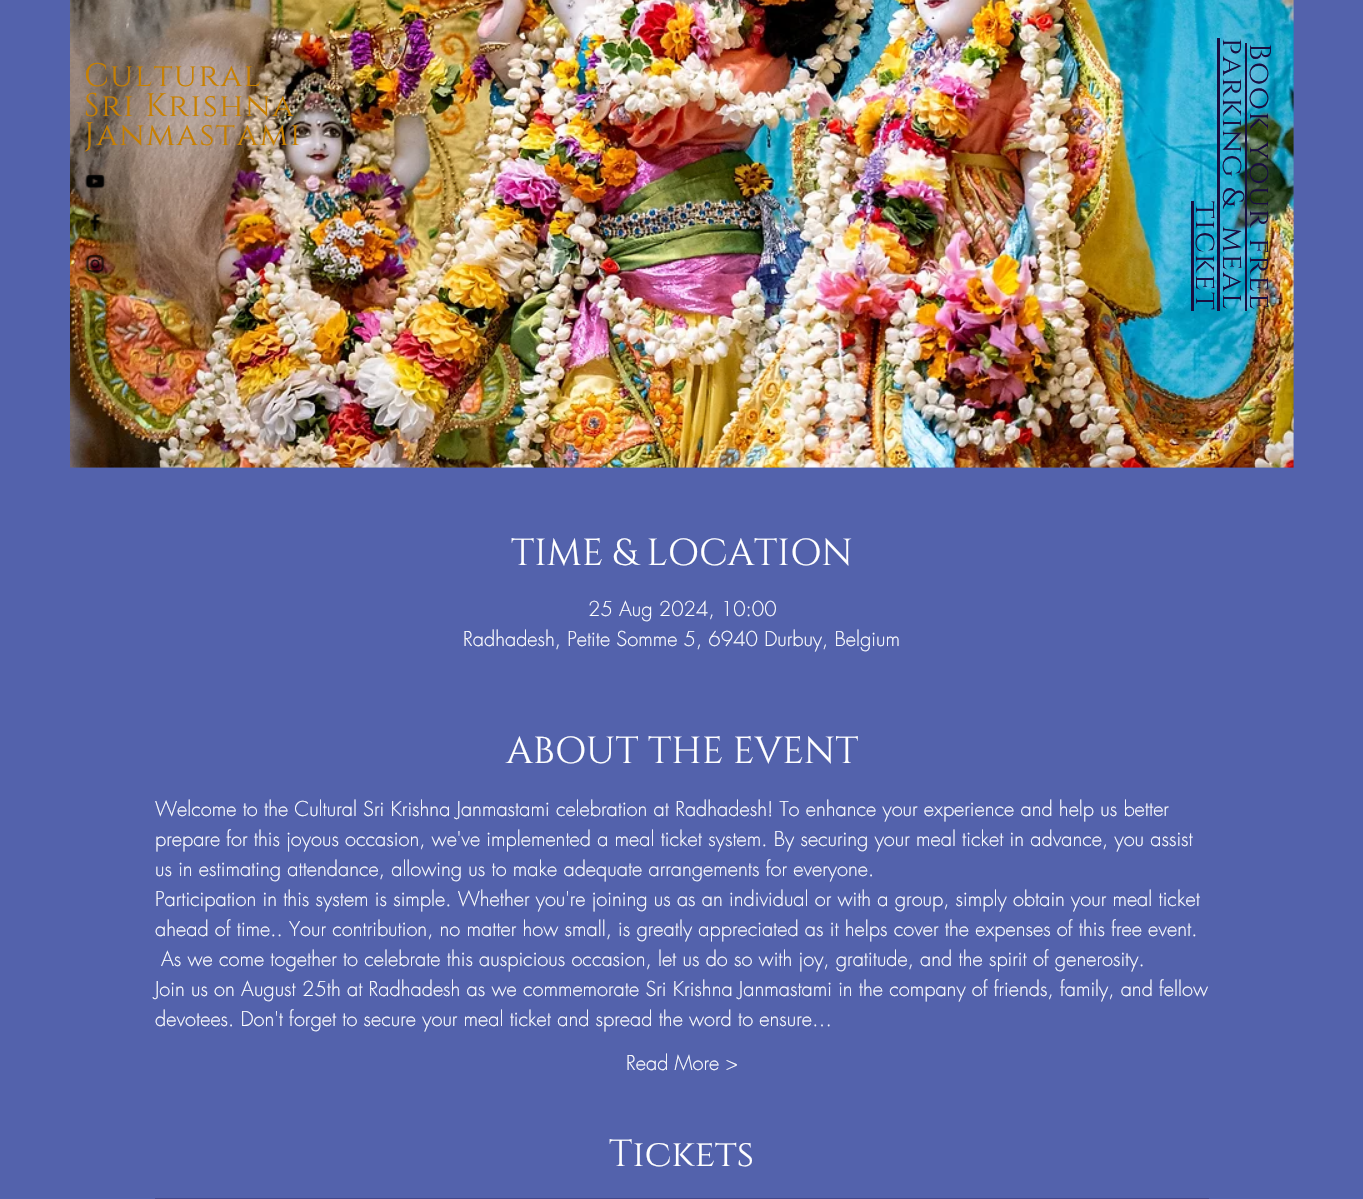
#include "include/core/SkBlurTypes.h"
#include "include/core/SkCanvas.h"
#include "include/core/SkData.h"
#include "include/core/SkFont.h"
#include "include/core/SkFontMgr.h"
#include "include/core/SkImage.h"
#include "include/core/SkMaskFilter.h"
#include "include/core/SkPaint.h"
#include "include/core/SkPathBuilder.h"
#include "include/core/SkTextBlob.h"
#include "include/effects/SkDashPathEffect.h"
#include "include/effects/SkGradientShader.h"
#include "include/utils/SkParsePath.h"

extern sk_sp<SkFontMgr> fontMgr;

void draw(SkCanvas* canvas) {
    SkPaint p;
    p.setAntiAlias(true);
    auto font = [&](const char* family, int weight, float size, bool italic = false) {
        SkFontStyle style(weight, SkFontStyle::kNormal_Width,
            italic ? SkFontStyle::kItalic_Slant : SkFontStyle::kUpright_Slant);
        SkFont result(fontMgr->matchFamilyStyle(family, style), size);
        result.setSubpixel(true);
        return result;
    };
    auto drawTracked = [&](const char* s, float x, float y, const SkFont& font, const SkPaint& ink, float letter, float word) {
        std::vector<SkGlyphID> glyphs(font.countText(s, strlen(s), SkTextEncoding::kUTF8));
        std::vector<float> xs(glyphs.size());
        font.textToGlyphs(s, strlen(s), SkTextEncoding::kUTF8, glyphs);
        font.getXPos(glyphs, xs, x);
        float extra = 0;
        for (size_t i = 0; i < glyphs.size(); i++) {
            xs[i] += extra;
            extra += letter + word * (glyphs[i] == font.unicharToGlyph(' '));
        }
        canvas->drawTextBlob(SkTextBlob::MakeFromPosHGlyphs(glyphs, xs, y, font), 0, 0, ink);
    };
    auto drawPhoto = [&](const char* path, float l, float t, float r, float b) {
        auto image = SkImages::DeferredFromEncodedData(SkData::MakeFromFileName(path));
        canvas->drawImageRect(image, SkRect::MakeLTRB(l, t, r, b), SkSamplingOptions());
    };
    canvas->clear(0xFF5362AC);
    drawPhoto("media/4.png", 70, 0, 1294, 468);
    auto font1 = font("Cinzel", 400, 32.5f);
    p.setColor(0xFFC78000);
    {
        const struct { const char* s; float x, y; } items[] = {
            {"Cultural", 84, 86},
            {"Sri Krishna", 84, 116},
            {"Janmastami", 84, 145},
        };
        for (auto [s, x, y] : items) {
            drawTracked(s, x, y, font1, p, 1.6f, 0);
        }
    }
    drawPhoto("media/1.png", 84, 174, 106, 189);
    drawPhoto("media/2.png", 89, 213, 101, 232);
    drawPhoto("media/3.png", 85, 254, 105, 273);
    auto font2 = font("Cinzel", 400, 30);
    p.setColor(0xFF190E40);
    canvas->save();
    canvas->rotate(90, 1196, 201);
    drawTracked("ticket", 1196, 201, font2, p, 1.5f, 0);
    canvas->restore();
    canvas->drawRect(SkRect::MakeLTRB(1191, 201, 1194, 311), p);
    canvas->save();
    canvas->rotate(90, 1223, 38);
    drawTracked("parking &  meal", 1223, 38, font2, p, 1.5f, 0);
    canvas->restore();
    canvas->drawRect(SkRect::MakeLTRB(1217, 38, 1220, 311), p);
    canvas->save();
    canvas->rotate(90, 1250, 43);
    drawTracked("Book your free", 1250, 43, font2, p, 1.5f, 0);
    canvas->restore();
    canvas->drawRect(SkRect::MakeLTRB(1245, 43, 1247, 311), p);
    auto font3 = font("Cinzel", 400, 37.5f);
    p.setColor(0xFFFFFFFF);
    canvas->drawString("TIME & LOCATION", 511, 565, font3, p);
    auto font4 = font("futura", 300, 20);
    canvas->drawString("25 Aug 2024, 10:00", 588, 616, font4, p);
    canvas->drawString("Radhadesh, Petite Somme 5, 6940 Durbuy, Belgium", 463, 646, font4, p);
    canvas->drawString("ABOUT THE EVENT", 506, 763, font3, p);
    {
        const struct { const char* s; float x, y; } items[] = {
            {"Welcome to the Cultural Sri Krishna Janmastami celebration at Radhadesh! To enhance your experience and help us better", 155, 816},
            {"prepare for this joyous occasion, we've implemented a meal ticket system. By securing your meal ticket in advance, you assist", 155, 846},
            {"us in estimating attendance, allowing us to make adequate arrangements for everyone.", 155, 876},
            {"Participation in this system is simple. Whether you're joining us as an individual or with a group, simply obtain your meal ticket", 155, 906},
            {"ahead of time.. Your contribution, no matter how small, is greatly appreciated as it helps cover the expenses of this free event.", 155, 936},
            {"As we come together to celebrate this auspicious occasion, let us do so with joy, gratitude, and the spirit of generosity.", 161, 966},
            {"Join us on August 25th at Radhadesh as we commemorate Sri Krishna Janmastami in the company of friends, family, and fellow", 155, 996},
            {"devotees. Don't forget to secure your meal ticket and spread the word to ensure…", 155, 1026},
            {"Read More >", 626, 1070},
        };
        for (auto [s, x, y] : items) {
            canvas->drawString(s, x, y, font4, p);
        }
    }
    canvas->drawString("Tickets", 609, 1166, font3, p);
    p.setColor(0xFF42498C);
    canvas->drawRect(SkRect::MakeLTRB(155, 1198, 1209, 1199), p);
}
